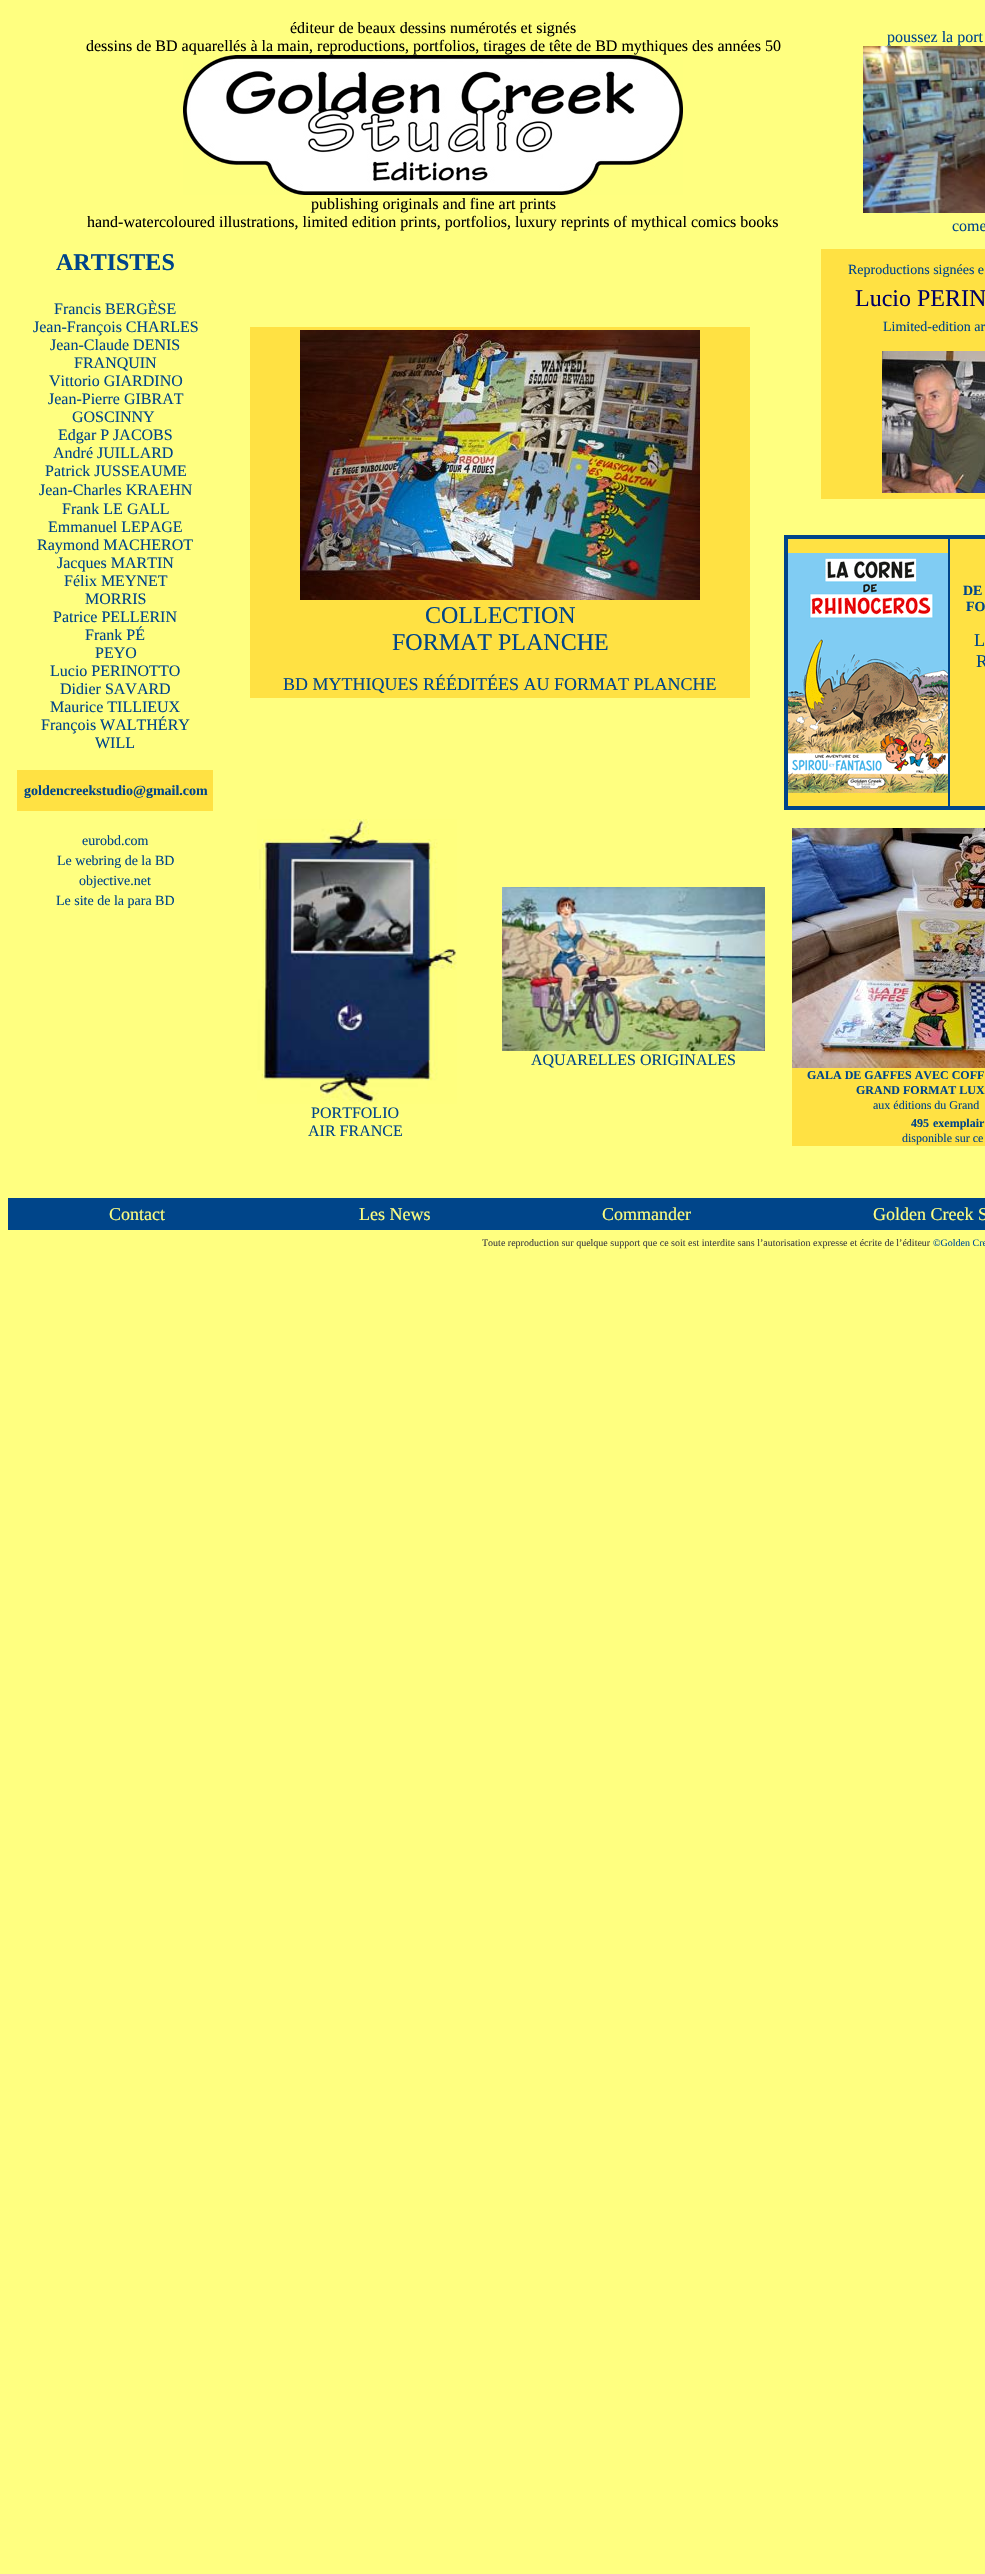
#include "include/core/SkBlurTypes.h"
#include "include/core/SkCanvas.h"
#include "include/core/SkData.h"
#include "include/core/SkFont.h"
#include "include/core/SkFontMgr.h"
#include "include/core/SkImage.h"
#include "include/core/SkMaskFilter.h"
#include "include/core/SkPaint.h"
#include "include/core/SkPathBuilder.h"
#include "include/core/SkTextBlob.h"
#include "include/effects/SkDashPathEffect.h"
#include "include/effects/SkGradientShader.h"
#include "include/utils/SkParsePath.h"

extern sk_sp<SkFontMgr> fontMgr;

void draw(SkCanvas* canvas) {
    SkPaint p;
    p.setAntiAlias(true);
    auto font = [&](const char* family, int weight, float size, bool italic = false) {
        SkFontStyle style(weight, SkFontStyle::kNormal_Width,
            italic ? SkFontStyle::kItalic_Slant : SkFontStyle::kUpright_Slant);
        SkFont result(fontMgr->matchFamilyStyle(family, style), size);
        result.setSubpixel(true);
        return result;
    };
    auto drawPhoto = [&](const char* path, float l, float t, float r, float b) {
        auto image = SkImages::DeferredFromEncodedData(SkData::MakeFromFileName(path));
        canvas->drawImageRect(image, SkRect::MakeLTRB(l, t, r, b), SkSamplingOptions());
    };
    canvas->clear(0xFFFFFF80);
    auto font1 = font("Liberation Serif", 400, 16);
    p.setColor(0xFF000000);
    canvas->drawString("éditeur de beaux dessins numérotés et signés", 290, 33, font1, p);
    canvas->drawString("dessins de BD aquarellés à la main, reproductions, portfolios, tirages de tête de BD mythiques des années 50", 86, 51, font1, p);
    drawPhoto("media/1.png", 183, 55, 683, 195);
    canvas->drawString("publishing originals and fine art prints", 311, 209, font1, p);
    canvas->drawString("hand-watercoloured illustrations, limited edition prints, portfolios, luxury reprints of mythical comics books", 87, 227, font1, p);
    p.setColor(0xFF00458A);
    canvas->drawString("poussez la port", 887, 42, font1, p);
    drawPhoto("media/2.png", 863, 46, 985, 213);
    canvas->drawString("come", 952, 231, font1, p);
    auto font2 = font("Liberation Serif", 700, 24);
    canvas->drawString("ARTISTES", 56, 270, font2, p);
    {
        const struct { const char* s; float x, y; } items[] = {
            {"Francis BERGÈSE", 54, 314},
            {"Jean-François CHARLES", 33, 332},
            {"Jean-Claude DENIS", 50, 350},
            {"FRANQUIN", 74, 368},
            {"Vittorio GIARDINO", 49, 386},
            {"Jean-Pierre GIBRAT", 48, 404},
            {"GOSCINNY", 72, 422},
            {"Edgar P JACOBS", 58, 440},
            {"André JUILLARD", 53, 458},
            {"Patrick JUSSEAUME", 45, 476},
            {"Jean-Charles KRAEHN", 39, 495},
            {"Frank LE GALL", 62, 514},
            {"Emmanuel LEPAGE", 48, 532},
            {"Raymond MACHEROT", 37, 550},
            {"Jacques MARTIN", 57, 568},
            {"Félix MEYNET", 64, 586},
            {"MORRIS", 85, 604},
            {"Patrice PELLERIN", 53, 622},
            {"Frank PÉ", 85, 640},
            {"PEYO", 95, 658},
            {"Lucio PERINOTTO", 50, 676},
            {"Didier SAVARD", 60, 694},
            {"Maurice TILLIEUX", 50, 712},
            {"François WALTHÉRY", 41, 730},
            {"WILL", 95, 748},
        };
        for (auto [s, x, y] : items) {
            canvas->drawString(s, x, y, font1, p);
        }
    }
    p.setColor(0xFFFFE143);
    canvas->drawRect(SkRect::MakeLTRB(17, 770, 213, 811), p);
    auto font3 = font("Liberation Serif", 700, 14);
    p.setColor(0xFF00458A);
    canvas->drawString("goldencreekstudio@gmail.com", 24, 795, font3, p);
    auto font4 = font("Liberation Serif", 400, 14);
    {
        const struct { const char* s; float x, y; } items[] = {
            {"eurobd.com", 82, 845},
            {"Le webring de la BD", 57, 865},
            {"objective.net", 79, 885},
            {"Le site de la para BD", 56, 905},
        };
        for (auto [s, x, y] : items) {
            canvas->drawString(s, x, y, font4, p);
        }
    }
    p.setColor(0xFFFFE143);
    canvas->drawRect(SkRect::MakeLTRB(250, 327, 750, 698), p);
    drawPhoto("media/3.png", 300, 330, 700, 600);
    auto font5 = font("Liberation Serif", 400, 24);
    p.setColor(0xFF00458A);
    canvas->drawString("COLLECTION", 425, 623, font5, p);
    canvas->drawString("FORMAT PLANCHE", 392, 650, font5, p);
    auto font6 = font("Liberation Serif", 400, 18);
    canvas->drawString("BD MYTHIQUES RÉÉDITÉES AU FORMAT PLANCHE", 283, 690, font6, p);
    p.setColor(0xFFFFE143);
    canvas->drawRect(SkRect::MakeLTRB(821, 249, 985, 499), p);
    p.setColor(0xFF00458A);
    canvas->drawString("Reproductions signées e", 848, 274, font4, p);
    p.setColor(0xFF000066);
    canvas->drawString("Lucio PERIN", 855, 306, font5, p);
    p.setColor(0xFF00458A);
    canvas->drawString("Limited-edition ar", 883, 331, font4, p);
    drawPhoto("media/4.png", 882, 351, 985, 493);
    p.setColor(0xFFFFE143);
    canvas->drawRect(SkRect::MakeLTRB(788, 539, 985, 806), p);
    p.setStyle(SkPaint::kStroke_Style);
    p.setStrokeWidth(3);
    p.setColor(0xFF00458A);
    canvas->drawRect(SkRect::MakeLTRB(785.5f, 536.5f, 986.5f, 808.5f), p);
    p.setStrokeWidth(1);
    canvas->drawRect(SkRect::MakeLTRB(787.5f, 538.5f, 948.5f, 806.5f), p);
    drawPhoto("media/5.png", 788, 553, 948, 793);
    canvas->drawRect(SkRect::MakeLTRB(949.5f, 538.5f, 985.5f, 806.5f), p);
    p.setStyle(SkPaint::kFill_Style);
    canvas->drawString("DE", 963, 595, font3, p);
    canvas->drawString("FO", 966, 611, font3, p);
    canvas->drawString("L", 974, 646, font6, p);
    canvas->drawString("R", 976, 667, font6, p);
    p.setColor(0xFFFFE143);
    canvas->drawRect(SkRect::MakeLTRB(792, 1068, 985, 1146), p);
    drawPhoto("media/6.png", 792, 828, 985, 1068);
    auto font7 = font("Liberation Serif", 700, 12);
    p.setColor(0xFF00458A);
    canvas->drawString("GALA DE GAFFES AVEC COFF", 807, 1079, font7, p);
    canvas->drawString("GRAND FORMAT LUX", 856, 1094, font7, p);
    auto font8 = font("Liberation Serif", 400, 12);
    canvas->drawString("aux éditions du Grand", 873, 1109, font8, p);
    canvas->drawString("495", 911, 1127, font7, p);
    canvas->drawString("exemplair", 933, 1127, font7, p);
    canvas->drawString("disponible sur ce", 902, 1142, font8, p);
    drawPhoto("media/7.png", 502, 887, 765, 1051);
    canvas->drawString("AQUARELLES ORIGINALES", 531, 1065, font1, p);
    drawPhoto("media/8.png", 257, 819, 457, 1104);
    canvas->drawString("PORTFOLIO", 311, 1118, font1, p);
    canvas->drawString("AIR FRANCE", 308, 1136, font1, p);
    canvas->drawRect(SkRect::MakeLTRB(8, 1198, 985, 1230), p);
    p.setColor(0xFFFFFF80);
    {
        const struct { const char* s; float x, y; } items[] = {
            {"Contact", 109, 1220},
            {"Les News", 359, 1220},
            {"Commander", 602, 1220},
            {"Golden Creek S", 873, 1220},
        };
        for (auto [s, x, y] : items) {
            canvas->drawString(s, x, y, font6, p);
        }
    }
    auto font9 = font("Liberation Serif", 400, 10);
    p.setColor(0xFF3F3F41);
    canvas->drawString("Toute reproduction sur quelque support que ce soit est interdite sans l’autorisation expresse et écrite de l’éditeur", 482, 1246, font9, p);
    p.setColor(0xFF005199);
    canvas->drawString("©Golden Cre", 933, 1246, font9, p);
}
